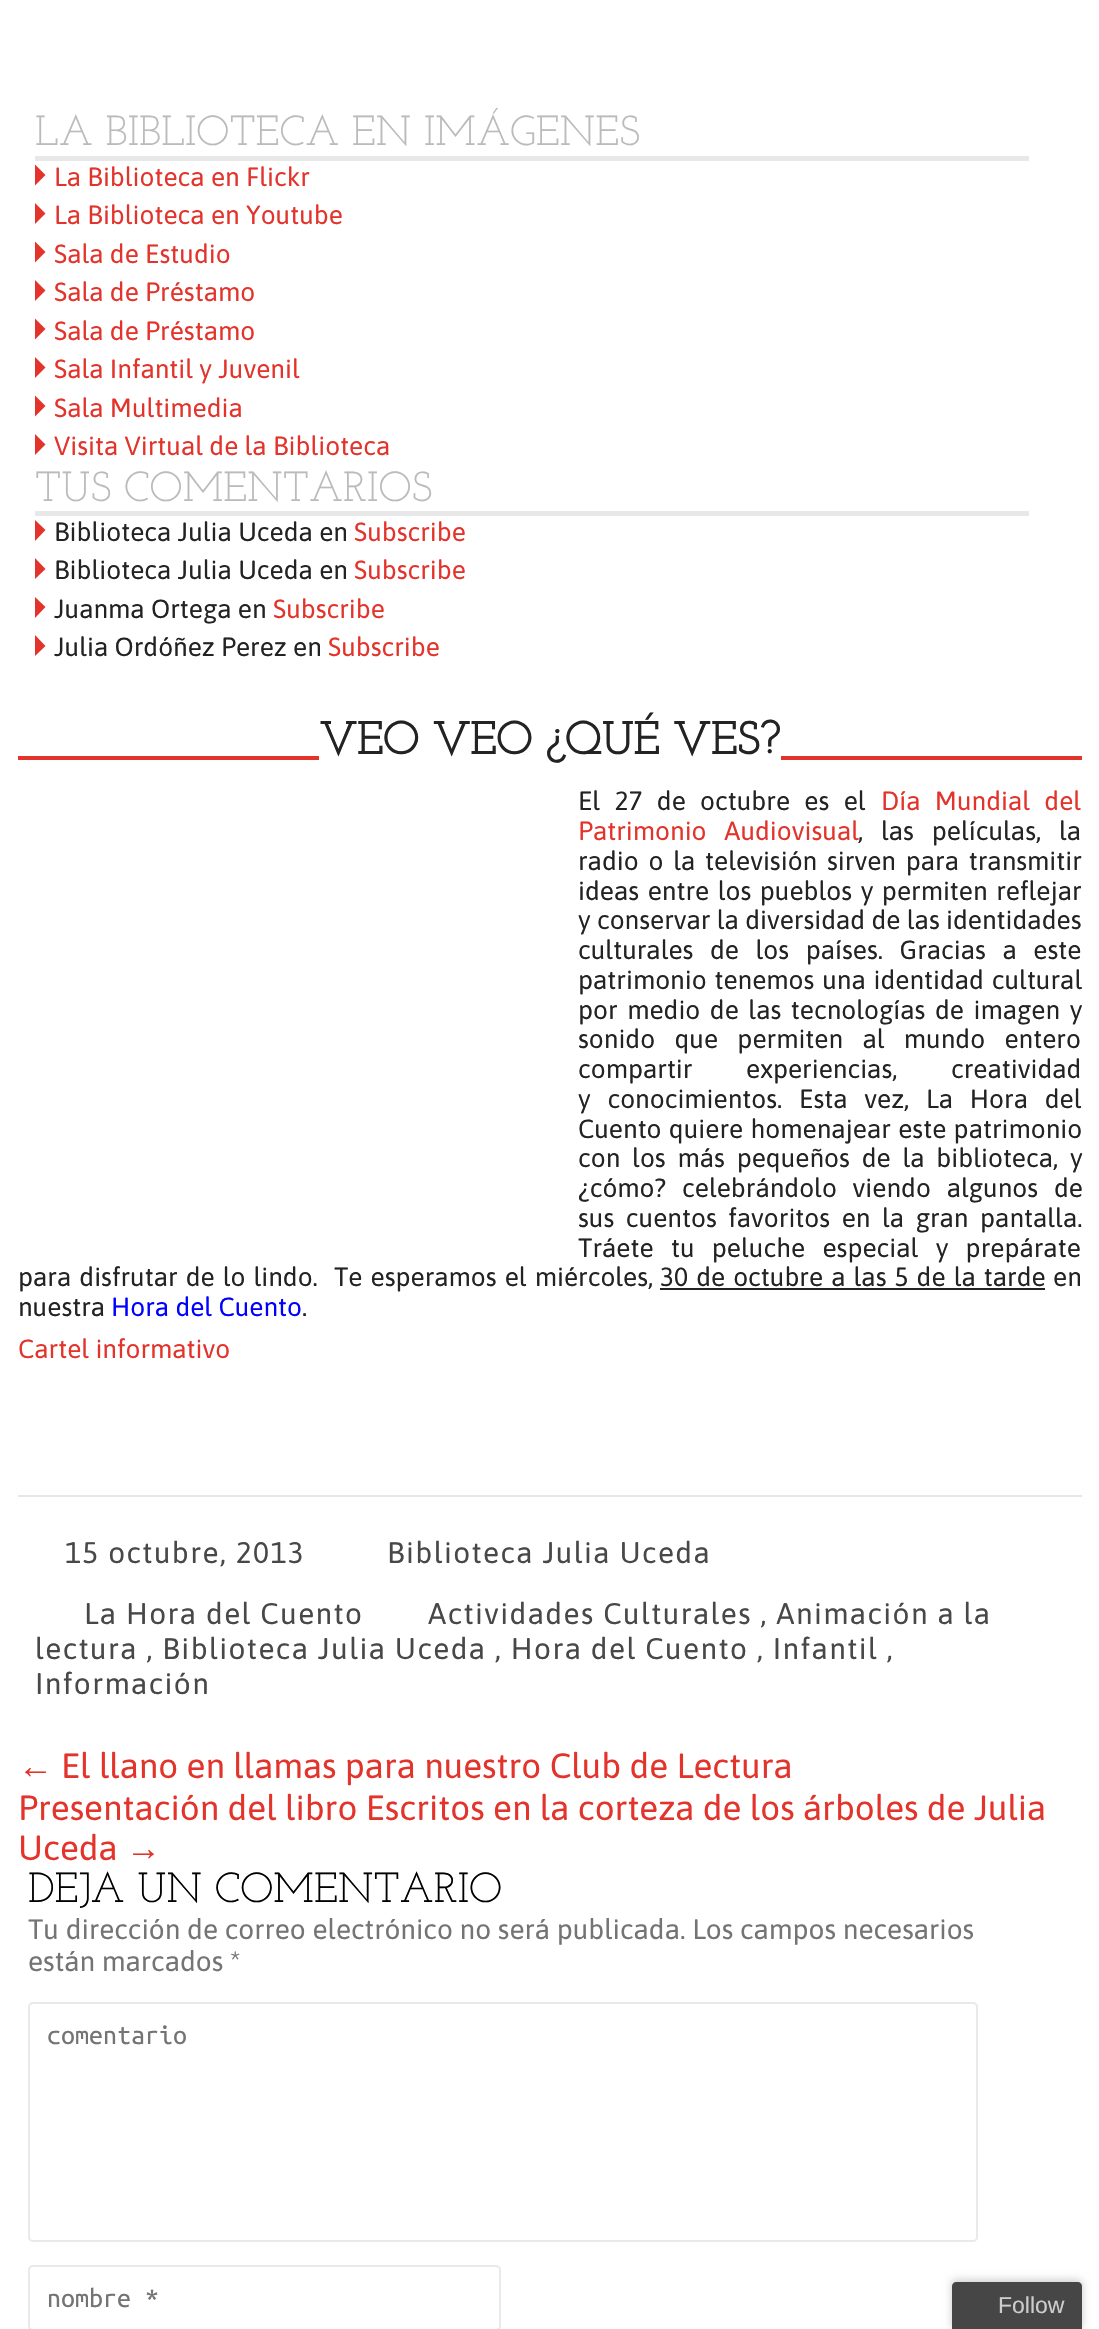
#include "include/core/SkBlurTypes.h"
#include "include/core/SkCanvas.h"
#include "include/core/SkData.h"
#include "include/core/SkFont.h"
#include "include/core/SkFontMgr.h"
#include "include/core/SkImage.h"
#include "include/core/SkMaskFilter.h"
#include "include/core/SkPaint.h"
#include "include/core/SkPathBuilder.h"
#include "include/core/SkTextBlob.h"
#include "include/effects/SkDashPathEffect.h"
#include "include/effects/SkGradientShader.h"
#include "include/utils/SkParsePath.h"

extern sk_sp<SkFontMgr> fontMgr;

void draw(SkCanvas* canvas) {
    SkPaint p;
    p.setAntiAlias(true);
    auto font = [&](const char* family, int weight, float size, bool italic = false) {
        SkFontStyle style(weight, SkFontStyle::kNormal_Width,
            italic ? SkFontStyle::kItalic_Slant : SkFontStyle::kUpright_Slant);
        SkFont result(fontMgr->matchFamilyStyle(family, style), size);
        result.setSubpixel(true);
        return result;
    };
    auto drawTracked = [&](const char* s, float x, float y, const SkFont& font, const SkPaint& ink, float letter, float word) {
        std::vector<SkGlyphID> glyphs(font.countText(s, strlen(s), SkTextEncoding::kUTF8));
        std::vector<float> xs(glyphs.size());
        font.textToGlyphs(s, strlen(s), SkTextEncoding::kUTF8, glyphs);
        font.getXPos(glyphs, xs, x);
        float extra = 0;
        for (size_t i = 0; i < glyphs.size(); i++) {
            xs[i] += extra;
            extra += letter + word * (glyphs[i] == font.unicharToGlyph(' '));
        }
        canvas->drawTextBlob(SkTextBlob::MakeFromPosHGlyphs(glyphs, xs, y, font), 0, 0, ink);
    };
    canvas->clear(0xFFFFFFFF);
    p.setColor(0xFFE8E8E8);
    canvas->drawRect(SkRect::MakeLTRB(35, 156, 1029, 161), p);
    auto font1 = font("Josefin Slab", 100, 42);
    p.setColor(0xFFBBBBBB);
    canvas->drawString("LA BIBLIOTECA EN IMÁGENES", 35, 145, font1, p);
    p.setColor(0xFFE3342C);
    canvas->drawPath(SkPathBuilder().moveTo(35, 185.5f).lineTo(35, 164.5f).lineTo(45.5f, 175).close().detach(), p);
    auto font2 = font("Asap", 400, 26.25f);
    canvas->drawString("La Biblioteca en Flickr", 54, 186, font2, p);
    canvas->drawPath(SkPathBuilder().moveTo(35, 224).lineTo(35, 203).lineTo(45.5f, 213.5f).close().detach(), p);
    canvas->drawString("La Biblioteca en Youtube", 54, 224, font2, p);
    canvas->drawPath(SkPathBuilder().moveTo(35, 262.5f).lineTo(35, 241.5f).lineTo(45.5f, 252).close().detach(), p);
    canvas->drawString("Sala de Estudio", 54, 263, font2, p);
    canvas->drawPath(SkPathBuilder().moveTo(35, 301).lineTo(35, 280).lineTo(45.5f, 290.5f).close().detach(), p);
    canvas->drawString("Sala de Préstamo", 54, 301, font2, p);
    canvas->drawPath(SkPathBuilder().moveTo(35, 339.5f).lineTo(35, 318.5f).lineTo(45.5f, 329).close().detach(), p);
    canvas->drawString("Sala de Préstamo", 54, 340, font2, p);
    canvas->drawPath(SkPathBuilder().moveTo(35, 378).lineTo(35, 357).lineTo(45.5f, 367.5f).close().detach(), p);
    canvas->drawString("Sala Infantil y Juvenil", 54, 378, font2, p);
    canvas->drawPath(SkPathBuilder().moveTo(35, 416.5f).lineTo(35, 395.5f).lineTo(45.5f, 406).close().detach(), p);
    canvas->drawString("Sala Multimedia", 54, 417, font2, p);
    canvas->drawPath(SkPathBuilder().moveTo(35, 455).lineTo(35, 434).lineTo(45.5f, 444.5f).close().detach(), p);
    canvas->drawString("Visita Virtual de la Biblioteca", 54, 455, font2, p);
    p.setColor(0xFFE8E8E8);
    canvas->drawRect(SkRect::MakeLTRB(35, 511, 1029, 516), p);
    p.setColor(0xFFBBBBBB);
    canvas->drawString("TUS COMENTARIOS", 35, 501, font1, p);
    p.setColor(0xFFE3342C);
    canvas->drawPath(SkPathBuilder().moveTo(35, 541).lineTo(35, 520).lineTo(45.5f, 530).close().detach(), p);
    p.setColor(0xFF232323);
    canvas->drawString("Biblioteca Julia Uceda en", 54, 541, font2, p);
    p.setColor(0xFFE3342C);
    canvas->drawString("Subscribe", 354, 541, font2, p);
    canvas->drawPath(SkPathBuilder().moveTo(35, 579).lineTo(35, 558).lineTo(45.5f, 569).close().detach(), p);
    p.setColor(0xFF232323);
    canvas->drawString("Biblioteca Julia Uceda en", 54, 579, font2, p);
    p.setColor(0xFFE3342C);
    canvas->drawString("Subscribe", 354, 579, font2, p);
    canvas->drawPath(SkPathBuilder().moveTo(35, 618).lineTo(35, 597).lineTo(45.5f, 607).close().detach(), p);
    p.setColor(0xFF232323);
    canvas->drawString("Juanma Ortega en", 54, 618, font2, p);
    p.setColor(0xFFE3342C);
    canvas->drawString("Subscribe", 273, 618, font2, p);
    canvas->drawPath(SkPathBuilder().moveTo(35, 656).lineTo(35, 635).lineTo(45.5f, 646).close().detach(), p);
    p.setColor(0xFF232323);
    canvas->drawString("Julia Ordóñez Perez en", 54, 656, font2, p);
    p.setColor(0xFFE3342C);
    canvas->drawString("Subscribe", 328, 656, font2, p);
    canvas->drawRect(SkRect::MakeLTRB(18, 756, 1082, 760), p);
    p.setColor(0xFFFFFFFF);
    canvas->drawRect(SkRect::MakeLTRB(319, 756, 781, 760), p);
    auto font3 = font("Josefin Slab", 700, 45.5f);
    p.setColor(0xFF232323);
    canvas->drawString("VEO VEO ¿QUÉ VES?", 319, 754, font3, p);
    drawTracked("El 27 de octubre es el", 578, 810, font2, p, 0, 8);
    p.setColor(0xFFE3342C);
    drawTracked("Día Mundial del", 881, 810, font2, p, 0, 8);
    drawTracked("Patrimonio Audiovisual", 578, 840, font2, p, 0, 11.5f);
    p.setColor(0xFF232323);
    drawTracked(", las películas, la", 858, 840, font2, p, 0, 11.5f);
    drawTracked("radio o la televisión sirven para transmitir", 578, 870, font2, p, 0, 3.5f);
    drawTracked("ideas entre los pueblos y permiten reflejar", 578, 900, font2, p, 0, 2.25f);
    canvas->drawString("y conservar la diversidad de las identidades", 578, 929, font2, p);
    drawTracked("culturales de los países. Gracias a este", 578, 959, font2, p, 0, 10.25f);
    drawTracked("patrimonio tenemos una identidad cultural", 578, 989, font2, p, 0, 1.5f);
    drawTracked("por medio de las tecnologías de imagen y", 578, 1019, font2, p, 0, 3.25f);
    drawTracked("sonido que permiten al mundo entero", 578, 1048, font2, p, 0, 13);
    canvas->drawString("compartir", 578, 1078, font2, p);
    canvas->drawString("experiencias,", 746, 1078, font2, p);
    canvas->drawString("creatividad", 951, 1078, font2, p);
    drawTracked("y conocimientos. Esta vez, La Hora del", 578, 1108, font2, p, 0, 10.5f);
    drawTracked("Cuento quiere homenajear este patrimonio", 578, 1138, font2, p, 0, 1);
    drawTracked("con los más pequeños de la biblioteca, y", 578, 1167, font2, p, 0, 5.5f);
    drawTracked("¿cómo? celebrándolo viendo algunos de", 578, 1197, font2, p, 0, 9.5f);
    drawTracked("sus cuentos favoritos en la gran pantalla.", 578, 1227, font2, p, 0, 5.25f);
    drawTracked("Tráete tu peluche especial y prepárate", 578, 1257, font2, p, 0, 11);
    drawTracked("para disfrutar de lo lindo.  Te esperamos el miércoles,", 18, 1286, font2, p, 0, 1.75f);
    drawTracked("30 de octubre a las 5 de la tarde", 660, 1286, font2, p, 0, 1.75f);
    canvas->drawRect(SkRect::MakeLTRB(660, 1288, 1045, 1290), p);
    canvas->drawString("en", 1053, 1286, font2, p);
    canvas->drawString("nuestra", 18, 1316, font2, p);
    p.setColor(0xFF0000FF);
    canvas->drawString("Hora del Cuento", 111, 1316, font2, p);
    p.setColor(0xFF232323);
    canvas->drawString(".", 302, 1316, font2, p);
    p.setColor(0xFFE3342C);
    canvas->drawString("Cartel informativo", 18, 1358, font2, p);
    p.setColor(0xFFE7E7E7);
    canvas->drawRect(SkRect::MakeLTRB(18, 1495, 1082, 1497), p);
    auto font4 = font("Asap", 400, 29.75f);
    p.setColor(0xFF484848);
    {
        const struct { const char* s; float x, y; } items[] = {
            {"15 octubre, 2013", 65, 1563},
            {"Biblioteca Julia Uceda", 387, 1563},
            {"La Hora del Cuento", 84, 1624},
            {"Actividades Culturales , Animación a la", 428, 1624},
            {"lectura , Biblioteca Julia Uceda , Hora del Cuento , Infantil ,", 35, 1659},
            {"Información", 35, 1694},
        };
        for (auto [s, x, y] : items) {
            drawTracked(s, x, y, font4, p, 1.4f, 0);
        }
    }
    auto font5 = font("Liberation Sans", 400, 35);
    p.setColor(0xFFE3342C);
    canvas->drawString("←", 18, 1778, font5, p);
    auto font6 = font("Asap", 400, 35);
    {
        const struct { const char* s; float x, y; } items[] = {
            {"El llano en llamas para nuestro Club de Lectura", 61, 1778},
            {"Presentación del libro Escritos en la corteza de los árboles de Julia", 18, 1820},
            {"Uceda", 18, 1860},
        };
        for (auto [s, x, y] : items) {
            canvas->drawString(s, x, y, font6, p);
        }
    }
    canvas->drawString("→", 126, 1860, font5, p);
    p.setColor(0xFF000000);
    canvas->drawString("DEJA UN COMENTARIO", 28, 1902, font1, p);
    auto font7 = font("Asap", 400, 28);
    p.setColor(0xFF747474);
    canvas->drawString("Tu dirección de correo electrónico no será publicada. Los campos necesarios", 28, 1939, font7, p);
    canvas->drawString("están marcados *", 28, 1971, font7, p);
    p.setStyle(SkPaint::kStroke_Style);
    p.setStrokeWidth(2);
    p.setColor(0xFFE9E9E9);
    canvas->drawRoundRect(SkRect::MakeLTRB(29, 2003, 977, 2241), 4, 4, p);
    auto font8 = font("Ubuntu Mono", 400, 28);
    p.setStyle(SkPaint::kFill_Style);
    p.setColor(0xFF747474);
    canvas->drawString("comentario", 47, 2044, font8, p);
    p.setStyle(SkPaint::kStroke_Style);
    p.setColor(0xFFE9E9E9);
    canvas->drawRoundRect(SkRect::MakeLTRB(29, 2266, 500, 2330), 4, 4, p);
    p.setStyle(SkPaint::kFill_Style);
    p.setColor(0xFF747474);
    canvas->drawString("nombre *", 47, 2307, font8, p);
    p.setColor(0x33000000);
    p.setMaskFilter(SkMaskFilter::MakeBlur(kNormal_SkBlurStyle, 4.5f));
    canvas->drawRoundRect(SkRect::MakeLTRB(952, 2280, 1082, 2329), 4, 4, p);
    p.setMaskFilter(nullptr);
    p.setColor(0xFF464646);
    canvas->drawPath(SkPathBuilder().moveTo(956, 2282).lineTo(1078, 2282).cubicTo(1080, 2282, 1082, 2284, 1082, 2286).lineTo(1082, 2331).lineTo(952, 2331).lineTo(952, 2286).cubicTo(952, 2284, 954, 2282, 956, 2282).close().detach(), p);
    auto font9 = font("Liberation Sans", 400, 23);
    p.setColor(0xFFCCCCCC);
    canvas->drawString("Follow", 998, 2313, font9, p);
}
